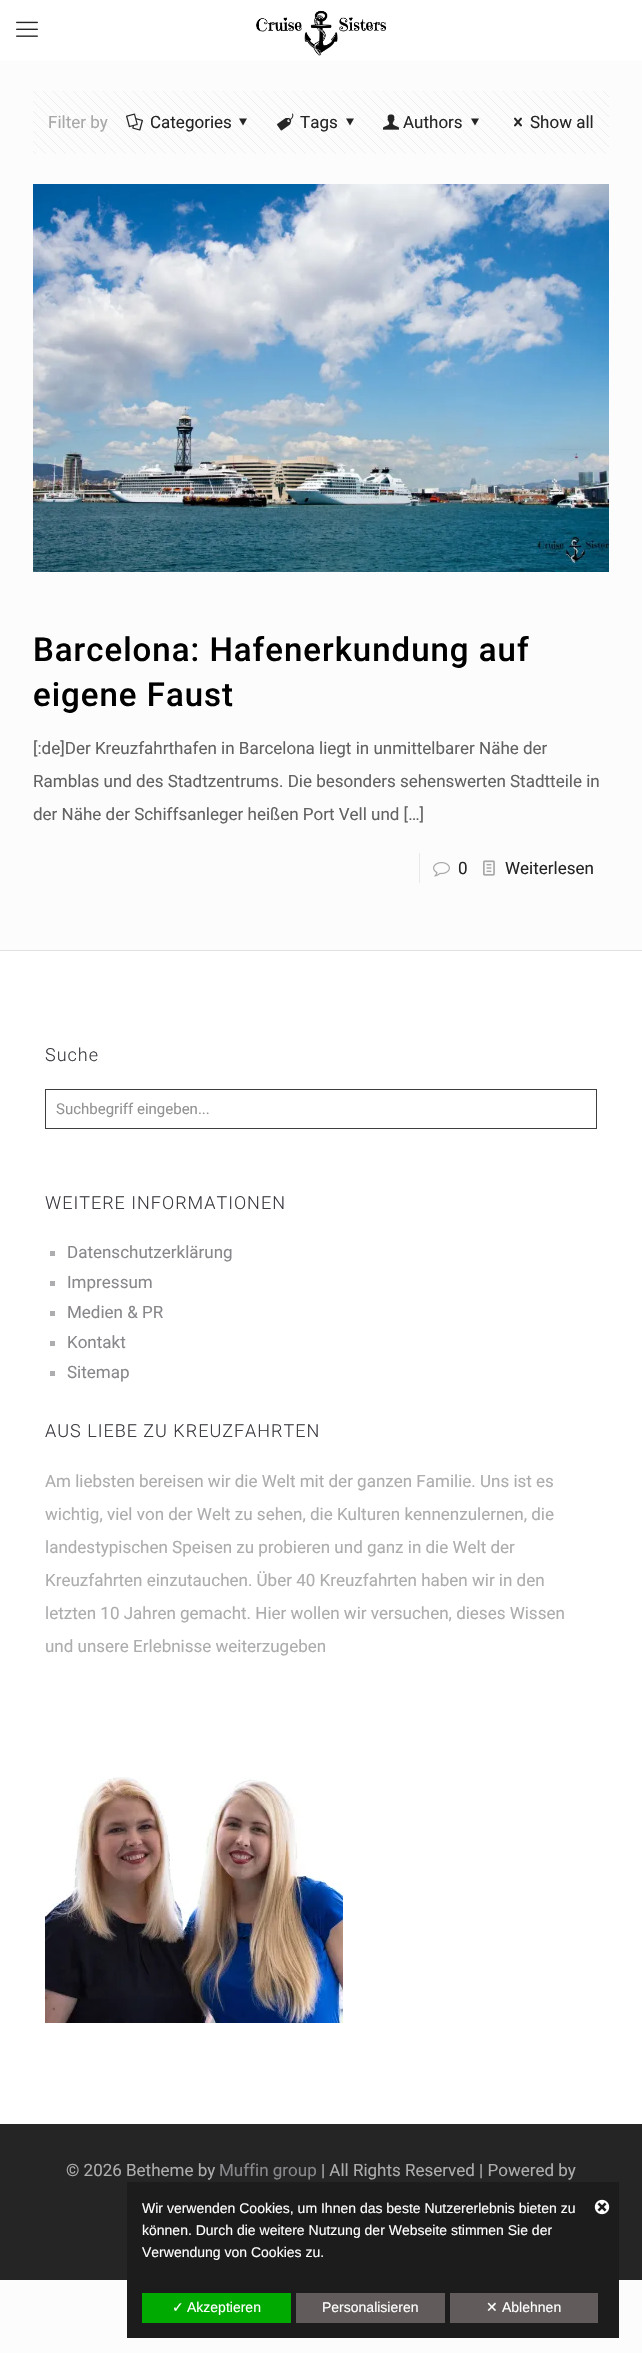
#include "include/core/SkBlurTypes.h"
#include "include/core/SkCanvas.h"
#include "include/core/SkData.h"
#include "include/core/SkFont.h"
#include "include/core/SkFontMgr.h"
#include "include/core/SkImage.h"
#include "include/core/SkMaskFilter.h"
#include "include/core/SkPaint.h"
#include "include/core/SkPathBuilder.h"
#include "include/core/SkTextBlob.h"
#include "include/effects/SkDashPathEffect.h"
#include "include/effects/SkGradientShader.h"
#include "include/utils/SkParsePath.h"

extern sk_sp<SkFontMgr> fontMgr;

void draw(SkCanvas* canvas) {
    SkPaint p;
    p.setAntiAlias(true);
    auto font = [&](const char* family, int weight, float size, bool italic = false) {
        SkFontStyle style(weight, SkFontStyle::kNormal_Width,
            italic ? SkFontStyle::kItalic_Slant : SkFontStyle::kUpright_Slant);
        SkFont result(fontMgr->matchFamilyStyle(family, style), size);
        result.setSubpixel(true);
        return result;
    };
    auto drawTracked = [&](const char* s, float x, float y, const SkFont& font, const SkPaint& ink, float letter, float word) {
        std::vector<SkGlyphID> glyphs(font.countText(s, strlen(s), SkTextEncoding::kUTF8));
        std::vector<float> xs(glyphs.size());
        font.textToGlyphs(s, strlen(s), SkTextEncoding::kUTF8, glyphs);
        font.getXPos(glyphs, xs, x);
        float extra = 0;
        for (size_t i = 0; i < glyphs.size(); i++) {
            xs[i] += extra;
            extra += letter + word * (glyphs[i] == font.unicharToGlyph(' '));
        }
        canvas->drawTextBlob(SkTextBlob::MakeFromPosHGlyphs(glyphs, xs, y, font), 0, 0, ink);
    };
    auto drawPhoto = [&](const char* path, float l, float t, float r, float b) {
        auto image = SkImages::DeferredFromEncodedData(SkData::MakeFromFileName(path));
        canvas->drawImageRect(image, SkRect::MakeLTRB(l, t, r, b), SkSamplingOptions());
    };
    canvas->clear(0xFFFCFCFC);
    p.setColor(0xFFFFFFFF);
    canvas->drawRect(SkRect::MakeLTRB(0, 0, 642, 61), p);
    drawPhoto("media/1.png", 16, 21, 38, 37);
    drawPhoto("media/2.png", 256, 10, 386, 56);
    drawPhoto("media/3.png", 33, 91, 609, 154);
    auto font1 = font("Roboto", 400, 17);
    p.setColor(0xFFA8A8A8);
    canvas->drawString("Filter by", 48, 128, font1, p);
    drawPhoto("media/4.png", 126, 113, 143, 131);
    p.setColor(0xFF252525);
    canvas->drawString("Categories", 150, 128, font1, p);
    canvas->drawPath(SkPathBuilder().moveTo(247, 118.5f).lineTo(243, 125.5f).lineTo(239, 118.5f).close().detach(), p);
    drawPhoto("media/5.png", 277, 113, 294, 131);
    canvas->drawString("Tags", 300, 128, font1, p);
    canvas->drawPath(SkPathBuilder().moveTo(354, 118.5f).lineTo(350, 125.5f).lineTo(346, 118.5f).close().detach(), p);
    drawPhoto("media/6.png", 383, 114, 399, 130);
    canvas->drawString("Authors", 403, 128, font1, p);
    canvas->drawPath(SkPathBuilder().moveTo(479, 118.5f).lineTo(475, 125.5f).lineTo(471, 118.5f).close().detach(), p);
    drawPhoto("media/7.png", 514, 117, 522, 127);
    canvas->drawString("Show all", 530, 128, font1, p);
    drawPhoto("media/8.png", 33, 184, 609, 572);
    auto font2 = font("Roboto", 500, 33);
    p.setColor(0xFF000000);
    drawTracked("Barcelona: Hafenerkundung auf", 33, 661, font2, p, 1, 0);
    drawTracked("eigene Faust", 33, 706, font2, p, 1, 0);
    p.setColor(0xFF626262);
    {
        const struct { const char* s; float x, y; } items[] = {
            {"[:de]Der Kreuzfahrthafen in Barcelona liegt in unmittelbarer Nähe der", 33, 754},
            {"Ramblas und des Stadtzentrums. Die besonders sehenswerten Stadtteile in", 33, 787},
            {"der Nähe der Schiffsanleger heißen Port Vell und […]", 33, 820},
        };
        for (auto [s, x, y] : items) {
            canvas->drawString(s, x, y, font1, p);
        }
    }
    p.setColor(0xFFE8E8E8);
    canvas->drawRect(SkRect::MakeLTRB(419, 853, 420, 883), p);
    drawPhoto("media/9.png", 433, 862, 450, 877);
    p.setColor(0xFF252525);
    canvas->drawString("0", 458, 874, font1, p);
    drawPhoto("media/10.png", 483, 860, 495, 876);
    canvas->drawString("Weiterlesen", 505, 874, font1, p);
    p.setColor(0xFFFFFFFF);
    canvas->drawRect(SkRect::MakeLTRB(0, 951, 642, 2124), p);
    p.setColor(0xFFE1E1E1);
    canvas->drawRect(SkRect::MakeLTRB(0, 950, 642, 951), p);
    auto font3 = font("Roboto", 300, 18);
    p.setColor(0xFF3D3A41);
    drawTracked("Suche", 45, 1061, font3, p, 1, 0);
    p.setStyle(SkPaint::kStroke_Style);
    p.setStrokeWidth(1);
    p.setColor(0xFF3E3E3E);
    canvas->drawRect(SkRect::MakeLTRB(45.5f, 1089.5f, 596.5f, 1128.5f), p);
    auto font4 = font("Roboto", 400, 15);
    p.setStyle(SkPaint::kFill_Style);
    p.setColor(0xFF929292);
    canvas->drawString("Suchbegriff eingeben...", 56, 1114, font4, p);
    p.setColor(0xFF3D3A41);
    drawTracked("WEITERE INFORMATIONEN", 45, 1209, font3, p, 1, 0);
    p.setColor(0xFFADACAE);
    canvas->drawRect(SkRect::MakeLTRB(50, 1251, 55, 1256), p);
    p.setColor(0xFF89878B);
    canvas->drawString("Datenschutzerklärung", 67, 1258, font1, p);
    p.setColor(0xFFADACAE);
    canvas->drawRect(SkRect::MakeLTRB(50, 1281, 55, 1286), p);
    p.setColor(0xFF89878B);
    canvas->drawString("Impressum", 67, 1288, font1, p);
    p.setColor(0xFFADACAE);
    canvas->drawRect(SkRect::MakeLTRB(50, 1311, 55, 1316), p);
    p.setColor(0xFF89878B);
    canvas->drawString("Medien & PR", 67, 1318, font1, p);
    p.setColor(0xFFADACAE);
    canvas->drawRect(SkRect::MakeLTRB(50, 1341, 55, 1346), p);
    p.setColor(0xFF89878B);
    canvas->drawString("Kontakt", 67, 1348, font1, p);
    p.setColor(0xFFADACAE);
    canvas->drawRect(SkRect::MakeLTRB(50, 1371, 55, 1376), p);
    p.setColor(0xFF89878B);
    canvas->drawString("Sitemap", 67, 1378, font1, p);
    p.setColor(0xFF3D3A41);
    drawTracked("AUS LIEBE ZU KREUZFAHRTEN", 45, 1437, font3, p, 1, 0);
    p.setColor(0xFFADACAE);
    {
        const struct { const char* s; float x, y; } items[] = {
            {"Am liebsten bereisen wir die Welt mit der ganzen Familie. Uns ist es", 45, 1487},
            {"wichtig, viel von der Welt zu sehen, die Kulturen kennenzulernen, die", 45, 1520},
            {"landestypischen Speisen zu probieren und ganz in die Welt der", 45, 1553},
            {"Kreuzfahrten einzutauchen. Über 40 Kreuzfahrten haben wir in den", 45, 1586},
            {"letzten 10 Jahren gemacht. Hier wollen wir versuchen, dieses Wissen", 45, 1619},
            {"und unsere Erlebnisse weiterzugeben", 45, 1652},
        };
        for (auto [s, x, y] : items) {
            canvas->drawString(s, x, y, font1, p);
        }
    }
    drawPhoto("media/11.png", 45, 1777, 343, 2023);
    p.setColor(0xFF252525);
    canvas->drawRect(SkRect::MakeLTRB(0, 2124, 642, 2280), p);
    p.setColor(0xFFADACAE);
    canvas->drawString("© 2026 Betheme by", 66, 2176, font1, p);
    p.setColor(0xFF89878B);
    canvas->drawString("Muffin group", 219, 2176, font1, p);
    p.setColor(0xFFADACAE);
    canvas->drawString("| All Rights Reserved | Powered by", 321, 2176, font1, p);
    p.setColor(0xFF1D1C1C);
    canvas->drawRect(SkRect::MakeLTRB(127, 2182, 619, 2338), p);
    auto font5 = font("Liberation Sans", 400, 14);
    p.setColor(0xFFFFFFFF);
    {
        const struct { const char* s; float x, y; } items[] = {
            {"Wir verwenden Cookies, um Ihnen das beste Nutzererlebnis bieten zu", 142, 2213},
            {"können. Durch die weitere Nutzung der Webseite stimmen Sie der", 142, 2235},
            {"Verwendung von Cookies zu.", 142, 2257},
        };
        for (auto [s, x, y] : items) {
            canvas->drawString(s, x, y, font5, p);
        }
    }
    drawPhoto("media/12.png", 594, 2199, 610, 2215);
    p.setColor(0xFF00AA00);
    canvas->drawRect(SkRect::MakeLTRB(142, 2293, 291, 2323), p);
    auto font6 = font("DejaVu Sans", 400, 14);
    p.setColor(0xFFFFFFFF);
    canvas->drawString("✓", 172, 2312, font6, p);
    canvas->drawString("Akzeptieren", 187, 2312, font5, p);
    p.setColor(0xFF615B5B);
    canvas->drawRect(SkRect::MakeLTRB(296, 2293, 445, 2323), p);
    p.setColor(0xFFFFFFFF);
    canvas->drawString("Personalisieren", 322, 2312, font5, p);
    p.setColor(0xFF615B5B);
    canvas->drawRect(SkRect::MakeLTRB(450, 2293, 598, 2323), p);
    p.setColor(0xFFFFFFFF);
    canvas->drawString("✕", 486, 2312, font6, p);
    canvas->drawString("Ablehnen", 502, 2312, font5, p);
}
